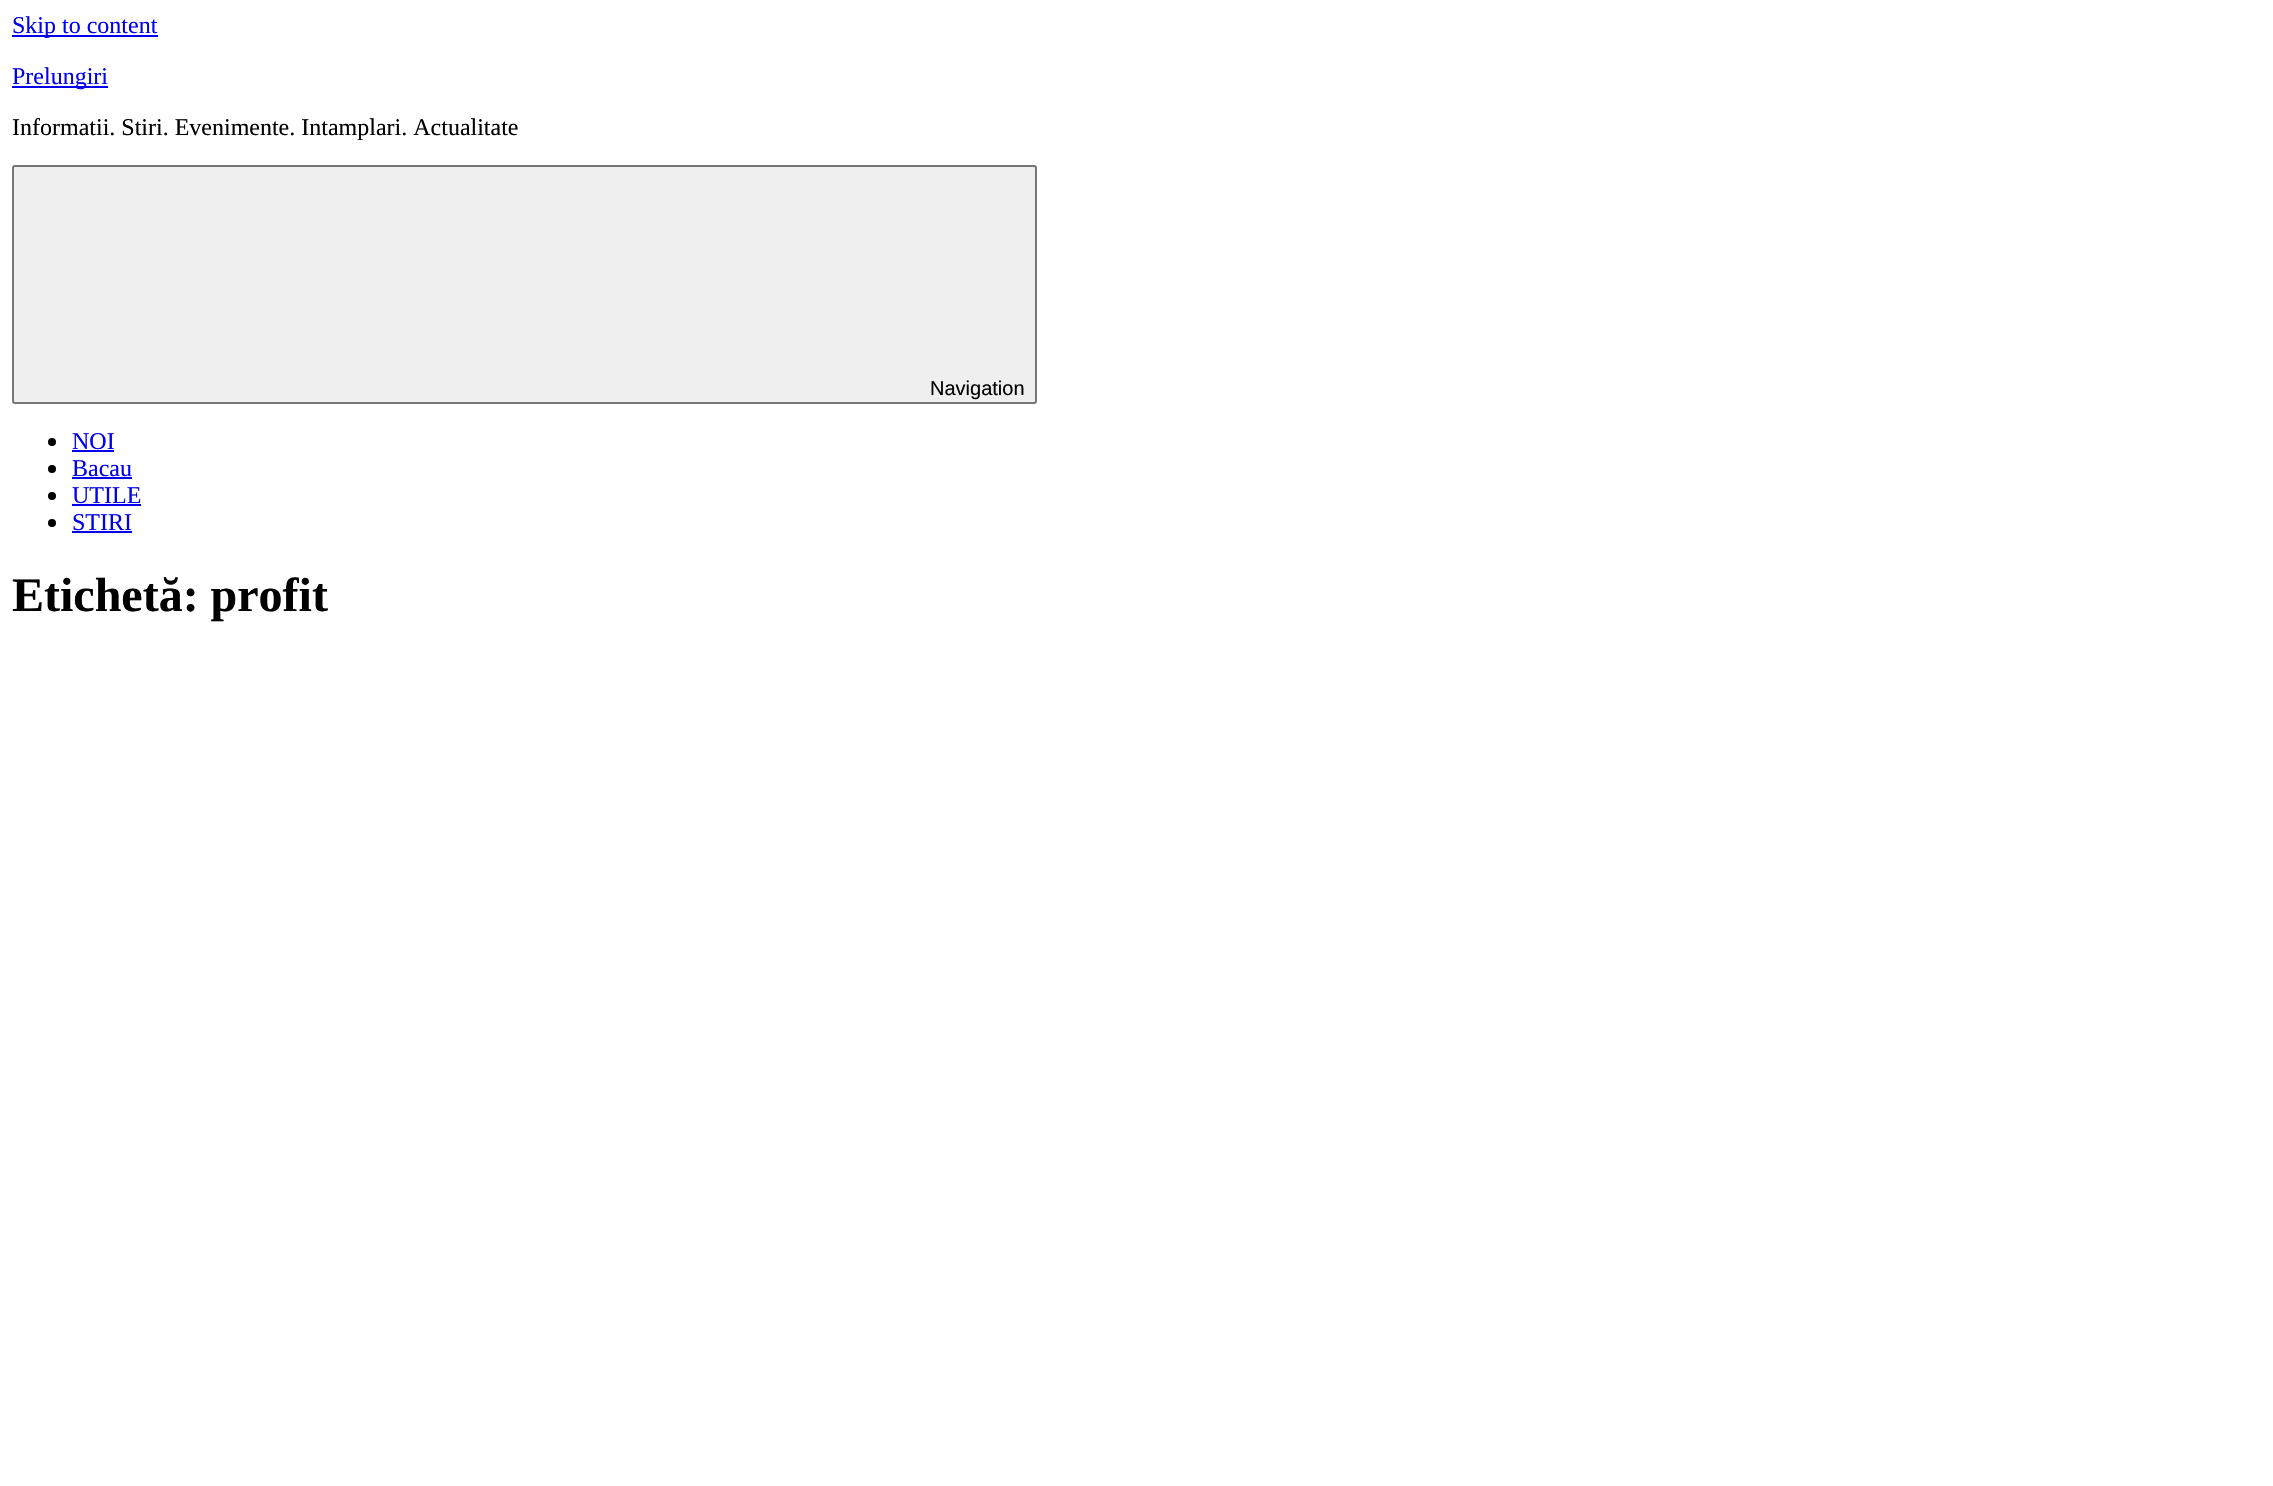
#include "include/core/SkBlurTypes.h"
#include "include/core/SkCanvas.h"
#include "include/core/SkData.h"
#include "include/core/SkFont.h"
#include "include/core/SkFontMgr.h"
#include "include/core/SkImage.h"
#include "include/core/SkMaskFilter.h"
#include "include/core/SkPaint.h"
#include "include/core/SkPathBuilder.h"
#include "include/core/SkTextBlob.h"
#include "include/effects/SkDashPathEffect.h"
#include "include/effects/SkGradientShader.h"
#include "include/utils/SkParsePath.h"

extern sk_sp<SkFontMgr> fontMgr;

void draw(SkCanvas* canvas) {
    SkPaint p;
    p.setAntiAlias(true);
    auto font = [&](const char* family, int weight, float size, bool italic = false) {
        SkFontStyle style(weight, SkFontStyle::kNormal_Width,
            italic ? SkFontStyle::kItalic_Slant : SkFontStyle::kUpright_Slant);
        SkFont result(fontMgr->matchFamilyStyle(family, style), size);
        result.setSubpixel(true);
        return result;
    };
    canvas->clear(0xFFFFFFFF);
    p.setColor(0xFF0000EE);
    canvas->drawRect(SkRect::MakeLTRB(12, 35, 158, 37), p);
    auto font1 = font("Liberation Serif", 400, 24);
    canvas->drawString("Skip to content", 12, 33, font1, p);
    canvas->drawRect(SkRect::MakeLTRB(12, 86, 108, 88), p);
    canvas->drawString("Prelungiri", 12, 84, font1, p);
    p.setColor(0xFF000000);
    canvas->drawString("Informatii. Stiri. Evenimente. Intamplari. Actualitate", 12, 135, font1, p);
    p.setColor(0xFFEFEFEF);
    canvas->drawRoundRect(SkRect::MakeLTRB(13, 166, 1036, 403), 2, 2, p);
    p.setStyle(SkPaint::kStroke_Style);
    p.setStrokeWidth(2);
    p.setColor(0xFF767676);
    canvas->drawRoundRect(SkRect::MakeLTRB(13, 166, 1036, 403), 2, 2, p);
    auto font2 = font("Liberation Sans", 400, 20);
    p.setStyle(SkPaint::kFill_Style);
    p.setColor(0xFF000000);
    canvas->drawString("Navigation", 930, 395, font2, p);
    canvas->drawCircle(52, 442, 4, p);
    p.setColor(0xFF0000EE);
    canvas->drawString("NOI", 72, 449, font1, p);
    canvas->drawRect(SkRect::MakeLTRB(72, 450, 114, 452), p);
    p.setColor(0xFF000000);
    canvas->drawCircle(52, 469, 4, p);
    p.setColor(0xFF0000EE);
    canvas->drawString("Bacau", 72, 476, font1, p);
    canvas->drawRect(SkRect::MakeLTRB(72, 477, 132, 479), p);
    p.setColor(0xFF000000);
    canvas->drawCircle(52, 496, 4, p);
    p.setColor(0xFF0000EE);
    canvas->drawString("UTILE", 72, 503, font1, p);
    canvas->drawRect(SkRect::MakeLTRB(72, 504, 141, 506), p);
    p.setColor(0xFF000000);
    canvas->drawCircle(52, 523, 4, p);
    p.setColor(0xFF0000EE);
    canvas->drawString("STIRI", 72, 530, font1, p);
    canvas->drawRect(SkRect::MakeLTRB(72, 531, 132, 533), p);
    auto font3 = font("Liberation Serif", 700, 48);
    p.setColor(0xFF000000);
    canvas->drawString("Etichetă: profit", 12, 611, font3, p);
}
